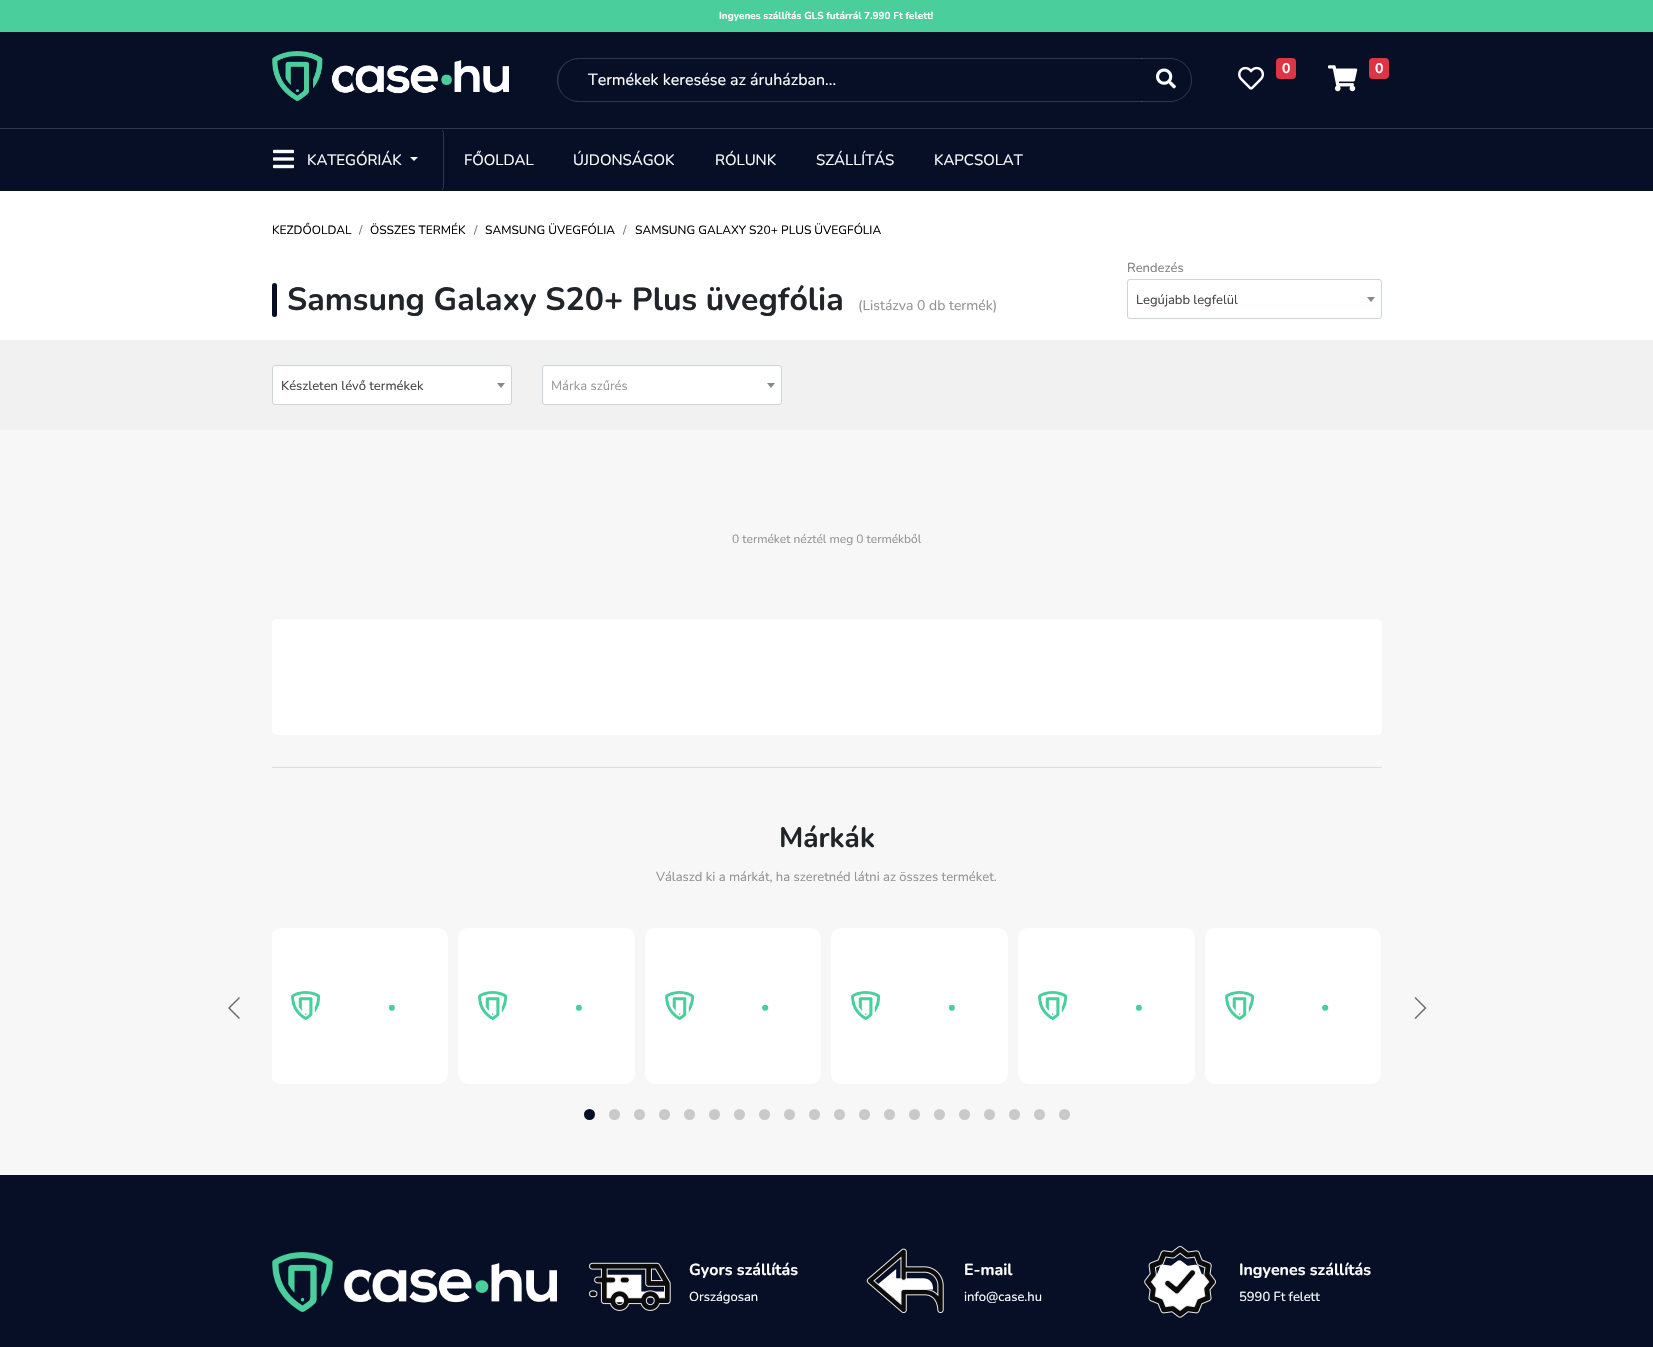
#include "include/core/SkBlurTypes.h"
#include "include/core/SkCanvas.h"
#include "include/core/SkData.h"
#include "include/core/SkFont.h"
#include "include/core/SkFontMgr.h"
#include "include/core/SkImage.h"
#include "include/core/SkMaskFilter.h"
#include "include/core/SkPaint.h"
#include "include/core/SkPathBuilder.h"
#include "include/core/SkTextBlob.h"
#include "include/effects/SkDashPathEffect.h"
#include "include/effects/SkGradientShader.h"
#include "include/utils/SkParsePath.h"

extern sk_sp<SkFontMgr> fontMgr;

void draw(SkCanvas* canvas) {
    SkPaint p;
    p.setAntiAlias(true);
    auto font = [&](const char* family, int weight, float size, bool italic = false) {
        SkFontStyle style(weight, SkFontStyle::kNormal_Width,
            italic ? SkFontStyle::kItalic_Slant : SkFontStyle::kUpright_Slant);
        SkFont result(fontMgr->matchFamilyStyle(family, style), size);
        result.setSubpixel(true);
        return result;
    };
    auto drawPhoto = [&](const char* path, float l, float t, float r, float b) {
        auto image = SkImages::DeferredFromEncodedData(SkData::MakeFromFileName(path));
        canvas->drawImageRect(image, SkRect::MakeLTRB(l, t, r, b), SkSamplingOptions());
    };
    canvas->clear(0xFFF7F7F7);
    p.setColor(0xFF4ACE9C);
    canvas->drawRect(SkRect::MakeLTRB(0, 0, 1653, 32), p);
    auto font1 = font("Nunito", 700, 10);
    p.setColor(0xFFFFFFFF);
    canvas->drawString("Ingyenes szállítás GLS futárrál 7.990 Ft felett!", 719, 19, font1, p);
    p.setColor(0xFF070F26);
    canvas->drawRect(SkRect::MakeLTRB(0, 32, 1653, 191), p);
    p.setColor(0xFF31384B);
    canvas->drawRect(SkRect::MakeLTRB(0, 128, 1653, 129), p);
    drawPhoto("media/1.png", 272, 51, 509, 101);
    drawPhoto("media/2.png", 1238, 66, 1265, 90);
    p.setColor(0xFFDC3545);
    canvas->drawRoundRect(SkRect::MakeLTRB(1276, 58, 1296, 79), 4, 4, p);
    auto font2 = font("Nunito", 700, 14);
    p.setColor(0xFFFFFFFF);
    canvas->drawString("0", 1282, 73, font2, p);
    drawPhoto("media/3.png", 1328, 65, 1358, 92);
    p.setColor(0xFFDC3545);
    canvas->drawRoundRect(SkRect::MakeLTRB(1369, 58, 1389, 79), 4, 4, p);
    p.setColor(0xFFFFFFFF);
    canvas->drawString("0", 1375, 73, font2, p);
    p.setColor(0xFF31384B);
    canvas->drawPath(SkPathBuilder(SkPathFillType::kEvenOdd).moveTo(579, 58).lineTo(1142, 58).lineTo(1142, 102).lineTo(579, 102).cubicTo(567, 102, 557, 92, 557, 80).cubicTo(557, 68, 567, 58, 579, 58).close().moveTo(579, 59).lineTo(1142, 59).lineTo(1142, 101).lineTo(579, 101).cubicTo(551, 101, 552, 59, 579, 59).close().detach(), p);
    auto font3 = font("Nunito", 400, 16);
    p.setColor(0xFFFFFFFF);
    canvas->drawString("Termékek keresése az áruházban...", 588, 85, font3, p);
    p.setColor(0x2BFFFFFF);
    canvas->drawPath(SkPathBuilder(SkPathFillType::kEvenOdd).moveTo(1141, 58).lineTo(1170, 58).cubicTo(1182, 58, 1192, 68, 1192, 80).cubicTo(1192, 92, 1182, 102, 1170, 102).lineTo(1141, 102).close().moveTo(1141, 59).lineTo(1170, 59).cubicTo(1182, 59, 1191, 68, 1191, 80).cubicTo(1191, 92, 1182, 101, 1170, 101).lineTo(1141, 101).close().detach(), p);
    drawPhoto("media/4.png", 1156, 68, 1176, 89);
    p.setStyle(SkPaint::kStroke_Style);
    p.setStrokeWidth(1);
    p.setColor(0xFF31384B);
    canvas->drawPath(SkPathBuilder().moveTo(442.5f, 130.5f).lineTo(443.5f, 132.5f).lineTo(443.5f, 187.5f).lineTo(442.5f, 189.5f).detach(), p);
    drawPhoto("media/5.png", 273, 149, 294, 169);
    auto font4 = font("Nunito", 400, 15);
    p.setStyle(SkPaint::kFill_Style);
    p.setColor(0xFFFFFFFF);
    canvas->drawString("KATEGÓRIÁK", 307, 165, font4, p);
    canvas->drawPath(SkPathBuilder().moveTo(410, 157).lineTo(418, 157).lineTo(414, 161).close().detach(), p);
    {
        const struct { const char* s; float x, y; } items[] = {
            {"FŐOLDAL", 464, 165},
            {"ÚJDONSÁGOK", 573, 165},
            {"RÓLUNK", 715, 165},
            {"SZÁLLÍTÁS", 816, 165},
            {"KAPCSOLAT", 934, 165},
        };
        for (auto [s, x, y] : items) {
            canvas->drawString(s, x, y, font4, p);
        }
    }
    canvas->drawRect(SkRect::MakeLTRB(0, 191, 1653, 340), p);
    auto font5 = font("Nunito", 400, 12);
    p.setColor(0xFF000000);
    canvas->drawString("KEZDŐOLDAL", 272, 234, font5, p);
    p.setColor(0xFF6C757D);
    canvas->drawString("/", 359, 234, font5, p);
    p.setColor(0xFF000000);
    canvas->drawString("ÖSSZES TERMÉK", 370, 234, font5, p);
    p.setColor(0xFF6C757D);
    canvas->drawString("/", 474, 234, font5, p);
    p.setColor(0xFF000000);
    canvas->drawString("SAMSUNG ÜVEGFÓLIA", 485, 234, font5, p);
    p.setColor(0xFF6C757D);
    canvas->drawString("/", 623, 234, font5, p);
    p.setColor(0xFF000000);
    canvas->drawString("SAMSUNG GALAXY S20+ PLUS ÜVEGFÓLIA", 635, 234, font5, p);
    p.setColor(0xFF070F26);
    canvas->drawRoundRect(SkRect::MakeLTRB(272, 283, 277, 317), 2.5f, 2.5f, p);
    auto font6 = font("Nunito", 700, 32);
    p.setColor(0xFF212529);
    canvas->drawString("Samsung Galaxy S20+ Plus üvegfólia", 287, 310, font6, p);
    auto font7 = font("Nunito", 400, 14);
    p.setColor(0xFF939393);
    canvas->drawString("(Listázva 0 db termék)", 858, 310, font7, p);
    auto font8 = font("Nunito", 400, 13);
    p.setColor(0xFF808080);
    canvas->drawString("Rendezés", 1127, 272, font8, p);
    p.setStyle(SkPaint::kStroke_Style);
    p.setColor(0xFFCED4DA);
    canvas->drawRoundRect(SkRect::MakeLTRB(1127.5f, 279.5f, 1381.5f, 318.5f), 2.5f, 2.5f, p);
    p.setStyle(SkPaint::kFill_Style);
    p.setColor(0xFF444444);
    canvas->drawString("Legújabb legfelül", 1136, 304, font8, p);
    p.setColor(0xFF888888);
    canvas->drawPath(SkPathBuilder().moveTo(1367, 297).lineTo(1375, 297).lineTo(1371, 302).close().detach(), p);
    p.setColor(0xFFF1F1F1);
    canvas->drawRect(SkRect::MakeLTRB(0, 340, 1653, 430), p);
    p.setColor(0xFFFFFFFF);
    canvas->drawRoundRect(SkRect::MakeLTRB(272.5f, 365.5f, 511.5f, 404.5f), 2.5f, 2.5f, p);
    p.setStyle(SkPaint::kStroke_Style);
    p.setColor(0xFFCED4DA);
    canvas->drawRoundRect(SkRect::MakeLTRB(272.5f, 365.5f, 511.5f, 404.5f), 2.5f, 2.5f, p);
    p.setStyle(SkPaint::kFill_Style);
    p.setColor(0xFF444444);
    canvas->drawString("Készleten lévő termékek", 281, 390, font8, p);
    p.setColor(0xFF888888);
    canvas->drawPath(SkPathBuilder().moveTo(497, 383).lineTo(505, 383).lineTo(501, 388).close().detach(), p);
    p.setColor(0xFFFFFFFF);
    canvas->drawRoundRect(SkRect::MakeLTRB(542.5f, 365.5f, 781.5f, 404.5f), 2.5f, 2.5f, p);
    p.setStyle(SkPaint::kStroke_Style);
    p.setColor(0xFFCED4DA);
    canvas->drawRoundRect(SkRect::MakeLTRB(542.5f, 365.5f, 781.5f, 404.5f), 2.5f, 2.5f, p);
    p.setStyle(SkPaint::kFill_Style);
    p.setColor(0xFF999999);
    canvas->drawString("Márka szűrés", 551, 390, font8, p);
    p.setColor(0xFF888888);
    canvas->drawPath(SkPathBuilder().moveTo(767, 383).lineTo(775, 383).lineTo(771, 388).close().detach(), p);
    p.setColor(0xFF939393);
    canvas->drawString("0 terméket néztél meg 0 termékből", 732, 543, font5, p);
    p.setColor(0xFFFFFFFF);
    canvas->drawRoundRect(SkRect::MakeLTRB(272, 619, 1382, 735), 5, 5, p);
    p.setColor(0xFFDEDEDE);
    canvas->drawRect(SkRect::MakeLTRB(272, 767, 1382, 768), p);
    auto font9 = font("Nunito", 700, 28);
    p.setColor(0xFF212529);
    canvas->drawString("Márkák", 779, 847, font9, p);
    p.setColor(0xFF939393);
    canvas->drawString("Válaszd ki a márkát, ha szeretnéd látni az összes terméket.", 656, 881, font8, p);
    p.setColor(0xFF6A6A6A);
    canvas->drawPath(SkPathBuilder().moveTo(228, 1008).lineTo(239, 997).lineTo(240, 998).lineTo(230, 1008).lineTo(240, 1018).lineTo(239, 1019).close().detach(), p);
    canvas->save();
    canvas->clipRect(SkRect::MakeLTRB(272, 928, 1382, 1145));
    p.setColor(0xFFFFFFFF);
    canvas->drawRoundRect(SkRect::MakeLTRB(271, 928, 448, 1084), 10, 10, p);
    canvas->restore();
    drawPhoto("media/6.png", 291, 991, 395, 1020);
    canvas->drawRoundRect(SkRect::MakeLTRB(458, 928, 635, 1084), 10, 10, p);
    drawPhoto("media/6.png", 478, 991, 582, 1020);
    canvas->drawRoundRect(SkRect::MakeLTRB(645, 928, 821, 1084), 10, 10, p);
    drawPhoto("media/7.png", 665, 991, 769, 1020);
    canvas->drawRoundRect(SkRect::MakeLTRB(831, 928, 1008, 1084), 10, 10, p);
    drawPhoto("media/6.png", 851, 991, 955, 1020);
    canvas->drawRoundRect(SkRect::MakeLTRB(1018, 928, 1195, 1084), 10, 10, p);
    drawPhoto("media/6.png", 1038, 991, 1142, 1020);
    canvas->drawRoundRect(SkRect::MakeLTRB(1205, 928, 1381, 1084), 10, 10, p);
    drawPhoto("media/7.png", 1225, 991, 1329, 1020);
    p.setColor(0xFF070F26);
    canvas->drawCircle(589.5f, 1114.5f, 5.5f, p);
    p.setColor(0xFFC9C9C9);
    canvas->drawCircle(614.5f, 1114.5f, 5.5f, p);
    canvas->drawCircle(639.5f, 1114.5f, 5.5f, p);
    canvas->drawCircle(664.5f, 1114.5f, 5.5f, p);
    canvas->drawCircle(689.5f, 1114.5f, 5.5f, p);
    canvas->drawCircle(714.5f, 1114.5f, 5.5f, p);
    canvas->drawCircle(739.5f, 1114.5f, 5.5f, p);
    canvas->drawCircle(764.5f, 1114.5f, 5.5f, p);
    canvas->drawCircle(789.5f, 1114.5f, 5.5f, p);
    canvas->drawCircle(814.5f, 1114.5f, 5.5f, p);
    canvas->drawCircle(839.5f, 1114.5f, 5.5f, p);
    canvas->drawCircle(864.5f, 1114.5f, 5.5f, p);
    canvas->drawCircle(889.5f, 1114.5f, 5.5f, p);
    canvas->drawCircle(914.5f, 1114.5f, 5.5f, p);
    canvas->drawCircle(939.5f, 1114.5f, 5.5f, p);
    canvas->drawCircle(964.5f, 1114.5f, 5.5f, p);
    canvas->drawCircle(989.5f, 1114.5f, 5.5f, p);
    canvas->drawCircle(1014.5f, 1114.5f, 5.5f, p);
    canvas->drawCircle(1039.5f, 1114.5f, 5.5f, p);
    canvas->drawCircle(1064.5f, 1114.5f, 5.5f, p);
    p.setColor(0xFF6A6A6A);
    canvas->drawPath(SkPathBuilder().moveTo(1426.5f, 1008).lineTo(1415.5f, 1019).lineTo(1414.5f, 1018).lineTo(1424.5f, 1008).lineTo(1414.5f, 998).lineTo(1415.5f, 997).close().detach(), p);
    p.setColor(0xFF070F26);
    canvas->drawRect(SkRect::MakeLTRB(0, 1175, 1653, 1347), p);
    drawPhoto("media/8.png", 272, 1252, 557, 1312);
    drawPhoto("media/9.png", 589, 1262, 671, 1311);
    auto font10 = font("Nunito", 700, 16);
    p.setColor(0xFFFFFFFF);
    canvas->drawString("Gyors szállítás", 689, 1275, font10, p);
    canvas->drawString("Országosan", 689, 1301, font8, p);
    drawPhoto("media/10.png", 866, 1248, 944, 1314);
    canvas->drawString("E-mail", 964, 1275, font10, p);
    canvas->drawString("info@case.hu", 964, 1301, font8, p);
    drawPhoto("media/11.png", 1144, 1246, 1216, 1318);
    canvas->drawString("Ingyenes szállítás", 1239, 1275, font10, p);
    canvas->drawString("5990 Ft felett", 1239, 1301, font8, p);
}
